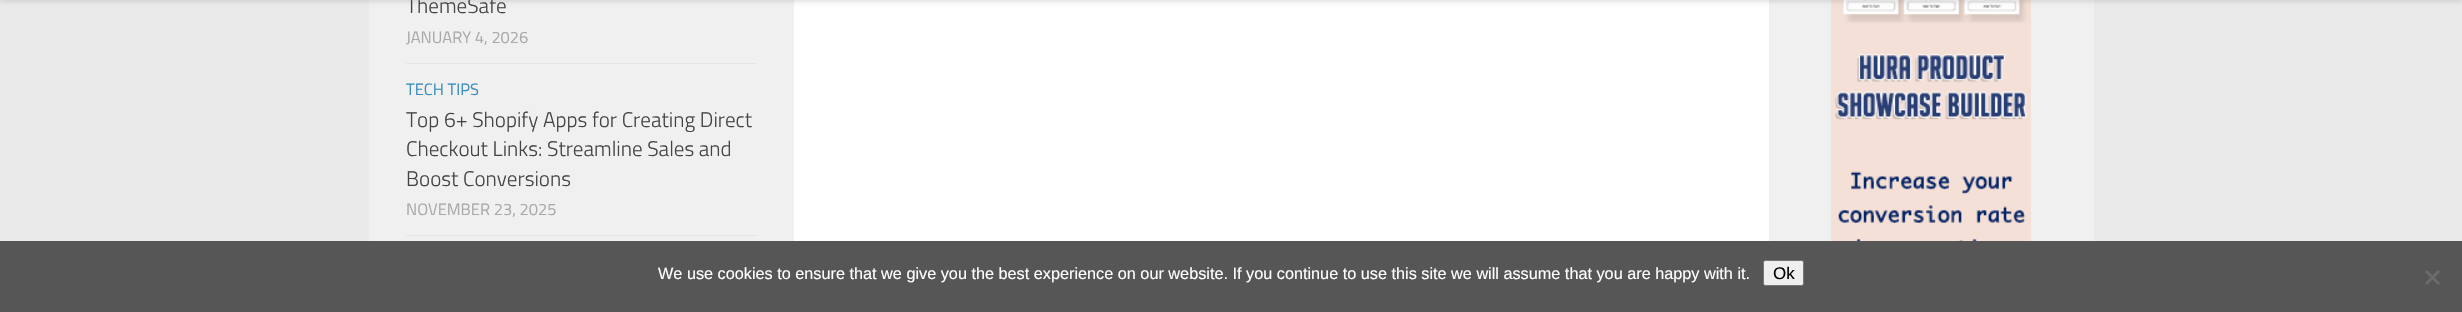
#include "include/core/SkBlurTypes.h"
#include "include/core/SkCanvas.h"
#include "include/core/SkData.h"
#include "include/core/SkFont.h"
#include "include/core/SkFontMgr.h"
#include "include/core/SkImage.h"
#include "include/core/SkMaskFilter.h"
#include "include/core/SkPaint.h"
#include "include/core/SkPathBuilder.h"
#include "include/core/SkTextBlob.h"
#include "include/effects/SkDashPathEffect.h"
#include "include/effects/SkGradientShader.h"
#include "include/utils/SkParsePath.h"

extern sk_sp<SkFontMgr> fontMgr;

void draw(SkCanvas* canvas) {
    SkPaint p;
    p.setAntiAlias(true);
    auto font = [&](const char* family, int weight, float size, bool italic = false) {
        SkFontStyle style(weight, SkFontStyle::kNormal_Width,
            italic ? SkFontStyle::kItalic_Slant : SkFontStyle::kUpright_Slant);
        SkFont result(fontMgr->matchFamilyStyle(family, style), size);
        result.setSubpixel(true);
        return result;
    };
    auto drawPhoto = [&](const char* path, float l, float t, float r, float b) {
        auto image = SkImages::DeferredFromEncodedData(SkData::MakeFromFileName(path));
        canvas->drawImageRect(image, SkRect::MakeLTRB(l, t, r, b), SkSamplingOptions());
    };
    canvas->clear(0xFFEAEAEA);
    p.setColor(0xFFFFFFFF);
    canvas->drawRect(SkRect::MakeLTRB(794, 0, 1769, 241), p);
    p.setColor(0xFFF0F0F0);
    canvas->drawRect(SkRect::MakeLTRB(369, 0, 794, 241), p);
    auto font1 = font("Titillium", 300, 21.1f);
    p.setColor(0xFF444444);
    canvas->drawString("ThemeSafe", 406, 13, font1, p);
    p.setColor(0xFFF0F0F0);
    canvas->drawRect(SkRect::MakeLTRB(1769, 0, 2094, 241), p);
    drawPhoto("media/1.png", 1831, 0, 2031, 241);
    p.setColor(0x26FFFFFF);
    canvas->drawPath(SkPathBuilder().moveTo(0, 0).lineTo(0, 1).lineTo(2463, 1).lineTo(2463, -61).lineTo(2462, -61).lineTo(2462, 0).close().detach(), p);
    p.setColor(0x33000000);
    p.setMaskFilter(SkMaskFilter::MakeBlur(kNormal_SkBlurStyle, 3));
    canvas->drawRect(SkRect::MakeLTRB(0, -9, 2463, 0), p);
    p.setMaskFilter(nullptr);
    p.setColor(0xFFE4E4E4);
    canvas->drawRect(SkRect::MakeLTRB(406, 63, 756, 64), p);
    auto font2 = font("Titillium", 400, 16.5f);
    p.setColor(0xFFAAAAAA);
    canvas->drawString("JANUARY 4, 2026", 406, 43, font2, p);
    p.setColor(0xFFE4E4E4);
    canvas->drawRect(SkRect::MakeLTRB(406, 235, 756, 236), p);
    p.setColor(0xFF3B8DBD);
    canvas->drawString("TECH TIPS", 406, 95, font2, p);
    p.setColor(0xFF444444);
    {
        const struct { const char* s; float x, y; } items[] = {
            {"Top 6+ Shopify Apps for Creating Direct", 406, 127},
            {"Checkout Links: Streamline Sales and", 406, 156},
            {"Boost Conversions", 406, 186},
        };
        for (auto [s, x, y] : items) {
            canvas->drawString(s, x, y, font1, p);
        }
    }
    p.setColor(0xFFAAAAAA);
    canvas->drawString("NOVEMBER 23, 2025", 406, 215, font2, p);
    p.setColor(0xFF565656);
    canvas->drawRect(SkRect::MakeLTRB(0, 241, 2462, 312), p);
    auto font3 = font("Liberation Sans", 400, 16.25f);
    p.setColor(0xFFFFFFFF);
    canvas->drawString("We use cookies to ensure that we give you the best experience on our website. If you continue to use this site we will assume that you are happy with it.", 658, 279, font3, p);
    p.setColor(0xFFEFEFEF);
    canvas->drawRoundRect(SkRect::MakeLTRB(1763.5f, 260.5f, 1803.5f, 285.5f), 2, 2, p);
    p.setStyle(SkPaint::kStroke_Style);
    p.setStrokeWidth(1);
    p.setColor(0xFF767676);
    canvas->drawRoundRect(SkRect::MakeLTRB(1763.5f, 260.5f, 1803.5f, 285.5f), 2, 2, p);
    auto font4 = font("Liberation Sans", 400, 17);
    p.setStyle(SkPaint::kFill_Style);
    p.setColor(0xFF000000);
    canvas->drawString("Ok", 1773, 279, font4, p);
    p.setColor(0xFF6B6B6B);
    canvas->drawPath(SkPathBuilder().moveTo(2438, 270).lineTo(2440, 272).lineTo(2427, 285).lineTo(2425, 283).close().detach(), p);
    canvas->drawPath(SkPathBuilder().moveTo(2425, 272).lineTo(2427, 270).lineTo(2440, 283).lineTo(2438, 285).close().detach(), p);
}
